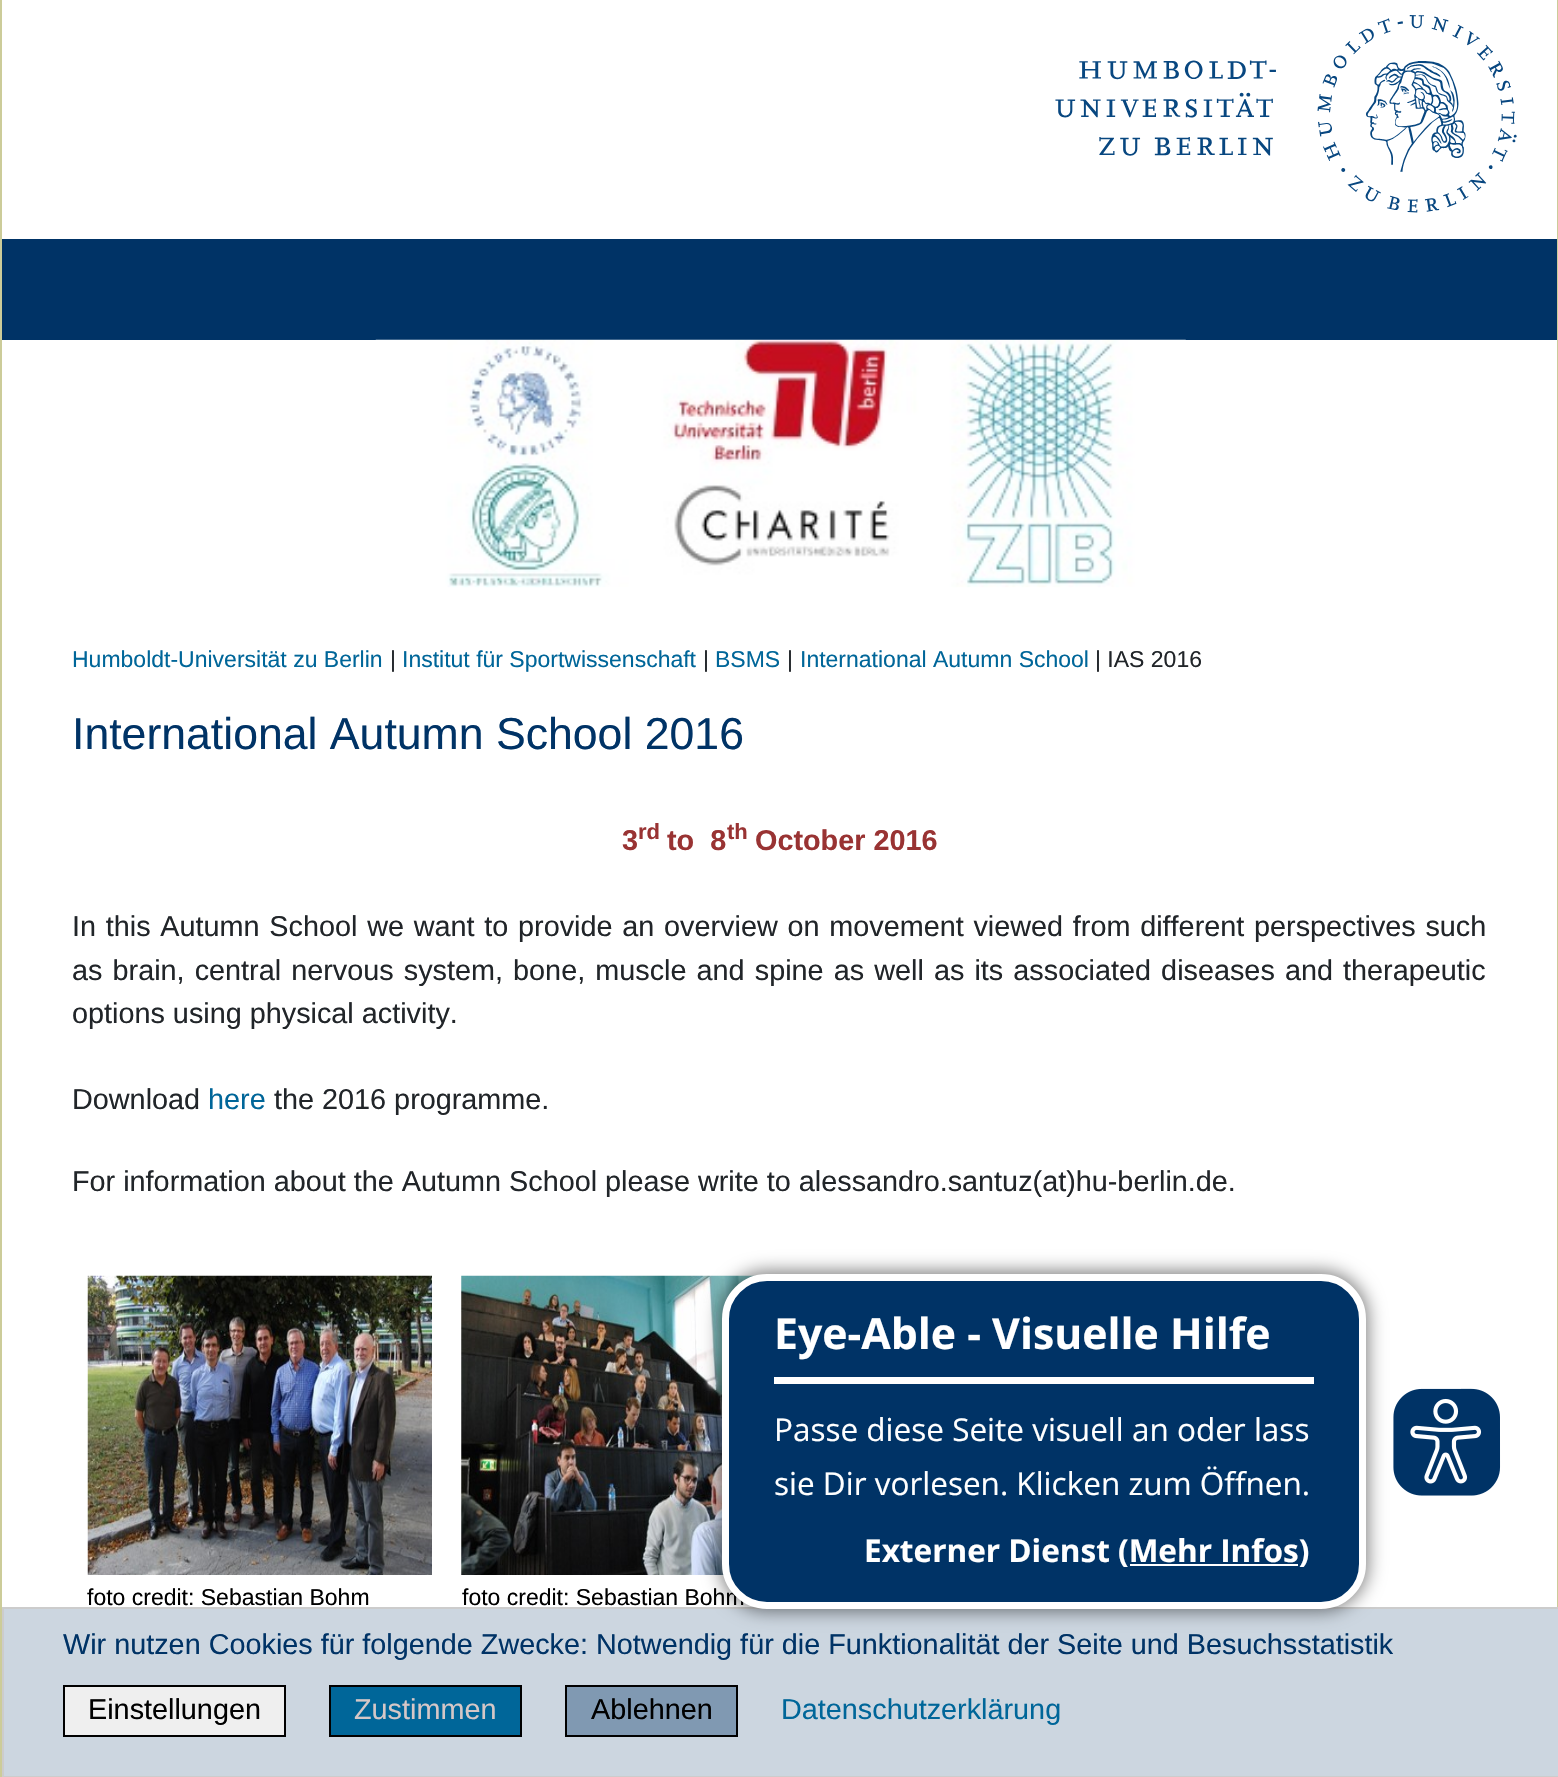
#include "include/core/SkBlurTypes.h"
#include "include/core/SkCanvas.h"
#include "include/core/SkData.h"
#include "include/core/SkFont.h"
#include "include/core/SkFontMgr.h"
#include "include/core/SkImage.h"
#include "include/core/SkMaskFilter.h"
#include "include/core/SkPaint.h"
#include "include/core/SkPathBuilder.h"
#include "include/core/SkTextBlob.h"
#include "include/effects/SkDashPathEffect.h"
#include "include/effects/SkGradientShader.h"
#include "include/utils/SkParsePath.h"

extern sk_sp<SkFontMgr> fontMgr;

void draw(SkCanvas* canvas) {
    SkPaint p;
    p.setAntiAlias(true);
    auto font = [&](const char* family, int weight, float size, bool italic = false) {
        SkFontStyle style(weight, SkFontStyle::kNormal_Width,
            italic ? SkFontStyle::kItalic_Slant : SkFontStyle::kUpright_Slant);
        SkFont result(fontMgr->matchFamilyStyle(family, style), size);
        result.setSubpixel(true);
        return result;
    };
    auto drawTracked = [&](const char* s, float x, float y, const SkFont& font, const SkPaint& ink, float letter, float word) {
        std::vector<SkGlyphID> glyphs(font.countText(s, strlen(s), SkTextEncoding::kUTF8));
        std::vector<float> xs(glyphs.size());
        font.textToGlyphs(s, strlen(s), SkTextEncoding::kUTF8, glyphs);
        font.getXPos(glyphs, xs, x);
        float extra = 0;
        for (size_t i = 0; i < glyphs.size(); i++) {
            xs[i] += extra;
            extra += letter + word * (glyphs[i] == font.unicharToGlyph(' '));
        }
        canvas->drawTextBlob(SkTextBlob::MakeFromPosHGlyphs(glyphs, xs, y, font), 0, 0, ink);
    };
    auto drawPhoto = [&](const char* path, float l, float t, float r, float b) {
        auto image = SkImages::DeferredFromEncodedData(SkData::MakeFromFileName(path));
        canvas->drawImageRect(image, SkRect::MakeLTRB(l, t, r, b), SkSamplingOptions());
    };
    canvas->clear(0xFFFFFFFF);
    drawPhoto("media/1.png", 1055, 15, 1517, 213);
    p.setColor(0xFF003366);
    canvas->drawRect(SkRect::MakeLTRB(2, 239, 1557, 340), p);
    drawPhoto("media/2.png", 375, 339, 1186, 588);
    p.setColor(0xFFCCCC99);
    canvas->drawRect(SkRect::MakeLTRB(1557, 0, 1558, 1607), p);
    canvas->drawRect(SkRect::MakeLTRB(0, 0, 2, 1777), p);
    auto font1 = font("Liberation Sans", 400, 23);
    p.setColor(0xFF006699);
    canvas->drawString("Humboldt-Universität zu Berlin", 72, 667, font1, p);
    p.setColor(0xFF212529);
    canvas->drawString("|", 390, 667, font1, p);
    p.setColor(0xFF006699);
    canvas->drawString("Institut für Sportwissenschaft", 402, 667, font1, p);
    p.setColor(0xFF212529);
    canvas->drawString("|", 703, 667, font1, p);
    p.setColor(0xFF006699);
    canvas->drawString("BSMS", 715, 667, font1, p);
    p.setColor(0xFF212529);
    canvas->drawString("|", 787, 667, font1, p);
    p.setColor(0xFF006699);
    canvas->drawString("International Autumn School", 800, 667, font1, p);
    p.setColor(0xFF212529);
    canvas->drawString("| IAS 2016", 1095, 667, font1, p);
    auto font2 = font("Liberation Sans", 400, 44.6f);
    p.setColor(0xFF003366);
    canvas->drawString("International Autumn School 2016", 72, 749, font2, p);
    auto font3 = font("Liberation Sans", 700, 28.8f);
    p.setColor(0xFF993333);
    canvas->drawString("3", 622, 850, font3, p);
    auto font4 = font("Liberation Sans", 700, 22);
    canvas->drawString("rd", 638, 839, font4, p);
    canvas->drawString("to  8", 667, 850, font3, p);
    canvas->drawString("th", 727, 839, font4, p);
    canvas->drawString("October 2016", 755, 850, font3, p);
    auto font5 = font("Liberation Sans", 400, 28.8f);
    p.setColor(0xFF212529);
    drawTracked("In this Autumn School we want to provide an overview on movement viewed from different perspectives such", 72, 936, font5, p, 0, 1.75f);
    drawTracked("as brain, central nervous system, bone, muscle and spine as well as its associated diseases and therapeutic", 72, 980, font5, p, 0, 2.1f);
    canvas->drawString("options using physical activity.", 72, 1023, font5, p);
    canvas->drawString("Download", 72, 1109, font5, p);
    p.setColor(0xFF006699);
    canvas->drawString("here", 208, 1109, font5, p);
    p.setColor(0xFF212529);
    canvas->drawString("the 2016 programme.", 274, 1109, font5, p);
    canvas->drawString("For information about the Autumn School please write to alessandro.santuz(at)hu-berlin.de.", 72, 1191, font5, p);
    drawPhoto("media/3.png", 87, 1275, 432, 1575);
    p.setColor(0xFF000000);
    canvas->drawString("foto credit: Sebastian Bohm", 87, 1605, font1, p);
    drawPhoto("media/4.png", 461, 1275, 758, 1575);
    canvas->drawString("foto credit: Sebastian Bohm", 462, 1605, font1, p);
    p.setColor(0xFFCCD6E0);
    canvas->drawRect(SkRect::MakeLTRB(3, 1608, 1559, 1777), p);
    p.setStyle(SkPaint::kStroke_Style);
    p.setStrokeWidth(2);
    p.setColor(0xFFCCCCCC);
    canvas->drawRect(SkRect::MakeLTRB(3, 1608, 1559, 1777), p);
    p.setStyle(SkPaint::kFill_Style);
    p.setColor(0x80000000);
    p.setMaskFilter(SkMaskFilter::MakeBlur(kNormal_SkBlurStyle, 9));
    canvas->drawRoundRect(SkRect::MakeLTRB(720, 1271, 1368, 1611), 47, 47, p);
    p.setMaskFilter(nullptr);
    p.setColor(0xFF003366);
    canvas->drawRoundRect(SkRect::MakeLTRB(725.5f, 1277.5f, 1362.5f, 1605.5f), 41.5f, 41.5f, p);
    p.setStyle(SkPaint::kStroke_Style);
    p.setStrokeWidth(7);
    p.setColor(0xFFFFFFFF);
    canvas->drawRoundRect(SkRect::MakeLTRB(725.5f, 1277.5f, 1362.5f, 1605.5f), 41.5f, 41.5f, p);
    p.setStyle(SkPaint::kFill_Style);
    canvas->drawRect(SkRect::MakeLTRB(774, 1377, 1314, 1384), p);
    auto font6 = font("Open Sans", 700, 42.75f);
    canvas->drawString("Eye-Able - Visuelle Hilfe", 774, 1349, font6, p);
    auto font7 = font("Open Sans", 400, 31.5f);
    canvas->drawString("Passe diese Seite visuell an oder lass", 774, 1441, font7, p);
    canvas->drawString("sie Dir vorlesen. Klicken zum Öffnen.", 774, 1495, font7, p);
    auto font8 = font("Open Sans", 700, 31.5f);
    canvas->drawString("Externer Dienst (Mehr Infos)", 864, 1562, font8, p);
    canvas->drawRect(SkRect::MakeLTRB(1130, 1564, 1298, 1566), p);
    drawPhoto("media/5.png", 1393, 1388, 1501, 1496);
    p.setColor(0xFF003366);
    canvas->drawString("Wir nutzen Cookies für folgende Zwecke: Notwendig für die Funktionalität der Seite und Besuchsstatistik", 63, 1654, font5, p);
    p.setColor(0xFFEFEFEF);
    canvas->drawRect(SkRect::MakeLTRB(64, 1686, 285, 1736), p);
    p.setStyle(SkPaint::kStroke_Style);
    p.setStrokeWidth(2);
    p.setColor(0xFF000000);
    canvas->drawRect(SkRect::MakeLTRB(64, 1686, 285, 1736), p);
    p.setStyle(SkPaint::kFill_Style);
    canvas->drawString("Einstellungen", 88, 1719, font5, p);
    p.setColor(0xFF006699);
    canvas->drawRect(SkRect::MakeLTRB(330, 1686, 521, 1736), p);
    p.setStyle(SkPaint::kStroke_Style);
    p.setColor(0xFF000000);
    canvas->drawRect(SkRect::MakeLTRB(330, 1686, 521, 1736), p);
    p.setStyle(SkPaint::kFill_Style);
    p.setColor(0xFFD5C7C7);
    canvas->drawString("Zustimmen", 354, 1719, font5, p);
    p.setColor(0xFF8099B2);
    canvas->drawRect(SkRect::MakeLTRB(566, 1686, 737, 1736), p);
    p.setStyle(SkPaint::kStroke_Style);
    p.setColor(0xFF000000);
    canvas->drawRect(SkRect::MakeLTRB(566, 1686, 737, 1736), p);
    p.setStyle(SkPaint::kFill_Style);
    canvas->drawString("Ablehnen", 591, 1719, font5, p);
    p.setColor(0xFF006699);
    canvas->drawString("Datenschutzerklärung", 781, 1719, font5, p);
}
